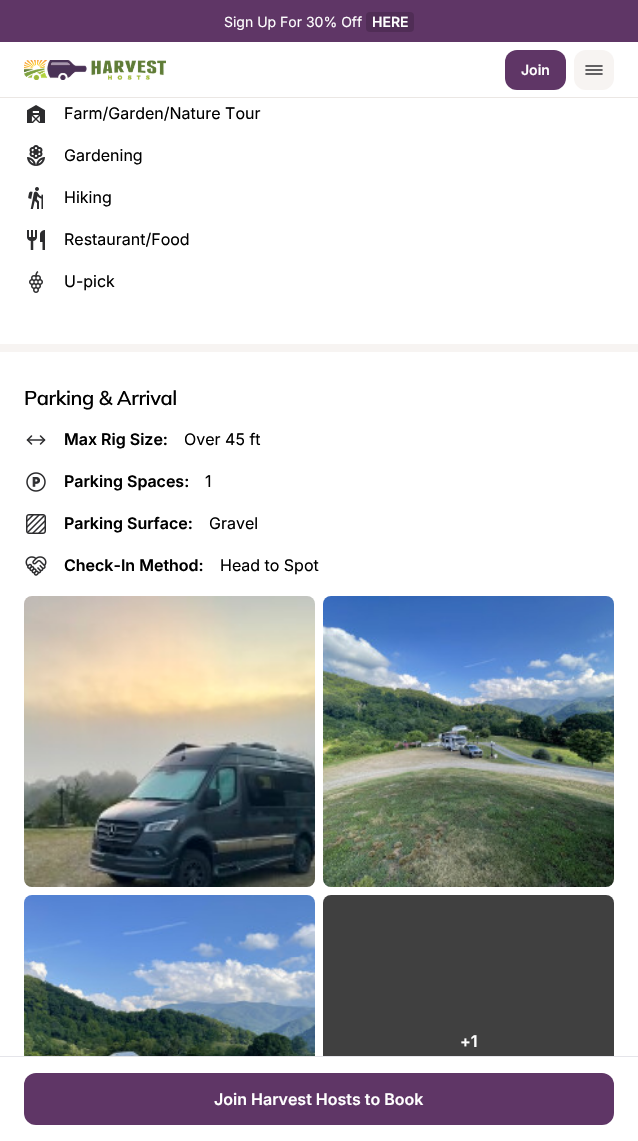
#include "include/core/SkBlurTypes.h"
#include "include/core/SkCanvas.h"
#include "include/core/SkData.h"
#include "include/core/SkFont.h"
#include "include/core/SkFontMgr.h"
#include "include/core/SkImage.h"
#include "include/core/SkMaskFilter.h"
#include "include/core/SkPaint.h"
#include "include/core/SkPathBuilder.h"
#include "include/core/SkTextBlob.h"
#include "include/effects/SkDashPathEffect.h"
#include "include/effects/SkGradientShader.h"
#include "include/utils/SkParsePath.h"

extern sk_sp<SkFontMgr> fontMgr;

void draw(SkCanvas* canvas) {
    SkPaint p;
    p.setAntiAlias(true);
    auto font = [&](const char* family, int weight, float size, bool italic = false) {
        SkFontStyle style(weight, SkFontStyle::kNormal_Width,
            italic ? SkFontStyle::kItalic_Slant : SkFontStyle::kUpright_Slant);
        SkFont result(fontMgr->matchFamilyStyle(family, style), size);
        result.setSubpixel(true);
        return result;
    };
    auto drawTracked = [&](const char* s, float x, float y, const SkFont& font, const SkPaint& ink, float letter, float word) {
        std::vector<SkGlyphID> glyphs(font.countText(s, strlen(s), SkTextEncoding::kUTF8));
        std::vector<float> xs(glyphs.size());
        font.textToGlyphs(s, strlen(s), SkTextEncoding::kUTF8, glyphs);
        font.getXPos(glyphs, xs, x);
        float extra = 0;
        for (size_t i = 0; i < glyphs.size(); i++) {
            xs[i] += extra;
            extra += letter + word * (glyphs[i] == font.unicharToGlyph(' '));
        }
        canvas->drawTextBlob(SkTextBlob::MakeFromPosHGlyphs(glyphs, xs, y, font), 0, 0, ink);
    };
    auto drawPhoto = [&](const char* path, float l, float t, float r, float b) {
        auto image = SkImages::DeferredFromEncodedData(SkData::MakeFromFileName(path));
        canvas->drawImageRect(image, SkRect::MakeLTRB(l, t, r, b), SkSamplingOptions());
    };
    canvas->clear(0xFFF7F4F2);
    p.setColor(0xFF5F3666);
    canvas->drawRect(SkRect::MakeLTRB(0, 0, 638, 42), p);
    auto font1 = font("Inter", 400, 14);
    p.setColor(0xFFFFFFFF);
    canvas->drawString("Sign Up For 30% Off", 224, 27, font1, p);
    p.setColor(0xFF502D56);
    canvas->drawRoundRect(SkRect::MakeLTRB(366, 12, 414, 32), 4, 4, p);
    auto font2 = font("Inter", 600, 14);
    p.setColor(0xFFFFFFFF);
    canvas->drawString("HERE", 372, 27, font2, p);
    canvas->drawRect(SkRect::MakeLTRB(0, 42, 638, 97), p);
    p.setColor(0xFFEBE7E4);
    canvas->drawRect(SkRect::MakeLTRB(0, 97, 638, 98), p);
    drawPhoto("media/1.png", 24, 60, 166, 80);
    p.setColor(0xFF5F3666);
    canvas->drawRoundRect(SkRect::MakeLTRB(505, 50, 566, 90), 12, 12, p);
    p.setColor(0xFFFFFFFF);
    canvas->drawString("Join", 521, 75, font2, p);
    p.setColor(0xFFF7F4F2);
    canvas->drawRoundRect(SkRect::MakeLTRB(574, 50, 614, 90), 12, 12, p);
    drawPhoto("media/2.png", 585, 65, 603, 75);
    p.setColor(0xFFFFFFFF);
    canvas->drawRect(SkRect::MakeLTRB(0, 98, 638, 344), p);
    drawPhoto("media/3.png", 27, 105, 45, 123);
    auto font3 = font("Inter", 400, 16);
    p.setColor(0xFF000000);
    canvas->drawString("Farm/Garden/Nature Tour", 64, 119, font3, p);
    drawPhoto("media/4.png", 27, 145, 45, 166);
    canvas->drawString("Gardening", 64, 161, font3, p);
    drawPhoto("media/5.png", 28, 187, 43, 209);
    canvas->drawString("Hiking", 64, 203, font3, p);
    drawPhoto("media/6.png", 27, 230, 45, 250);
    canvas->drawString("Restaurant/Food", 64, 245, font3, p);
    drawPhoto("media/7.png", 29, 271, 43, 293);
    canvas->drawString("U-pick", 64, 287, font3, p);
    p.setColor(0xFFFFFFFF);
    canvas->drawRect(SkRect::MakeLTRB(0, 352, 638, 1056), p);
    auto font4 = font("Mulish", 600, 20);
    p.setColor(0xFF000000);
    drawTracked("Parking & Arrival", 24, 405, font4, p, -0.4f, 0);
    drawPhoto("media/8.png", 26, 435, 46, 445);
    auto font5 = font("Inter", 600, 16);
    canvas->drawString("Max Rig Size:", 64, 445, font5, p);
    canvas->drawString("Over 45 ft", 184, 445, font3, p);
    drawPhoto("media/9.png", 26, 472, 46, 492);
    canvas->drawString("Parking Spaces:", 64, 487, font5, p);
    canvas->drawString("1", 205, 487, font3, p);
    drawPhoto("media/10.png", 26, 514, 46, 534);
    canvas->drawString("Parking Surface:", 64, 529, font5, p);
    canvas->drawString("Gravel", 209, 529, font3, p);
    drawPhoto("media/11.png", 25, 556, 47, 576);
    canvas->drawString("Check-In Method:", 64, 571, font5, p);
    canvas->drawString("Head to Spot", 220, 571, font3, p);
    drawPhoto("media/12.png", 24, 596, 315, 887);
    drawPhoto("media/13.png", 323, 596, 614, 887);
    drawPhoto("media/14.png", 24, 895, 315, 1056);
    p.setColor(0xFF404040);
    canvas->drawRoundRect(SkRect::MakeLTRB(323, 895, 614, 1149), 8, 8, p);
    p.setColor(0xFFFFFFFF);
    canvas->drawString("+1", 460, 1047, font5, p);
    canvas->drawRect(SkRect::MakeLTRB(0, 1057, 638, 1141), p);
    p.setColor(0xFFE5E5EA);
    canvas->drawRect(SkRect::MakeLTRB(0, 1056, 638, 1057), p);
    p.setColor(0xFF5F3666);
    canvas->drawRoundRect(SkRect::MakeLTRB(24, 1073, 614, 1125), 12, 12, p);
    p.setColor(0xFFFFFFFF);
    canvas->drawString("Join Harvest Hosts to Book", 214, 1105, font5, p);
}
